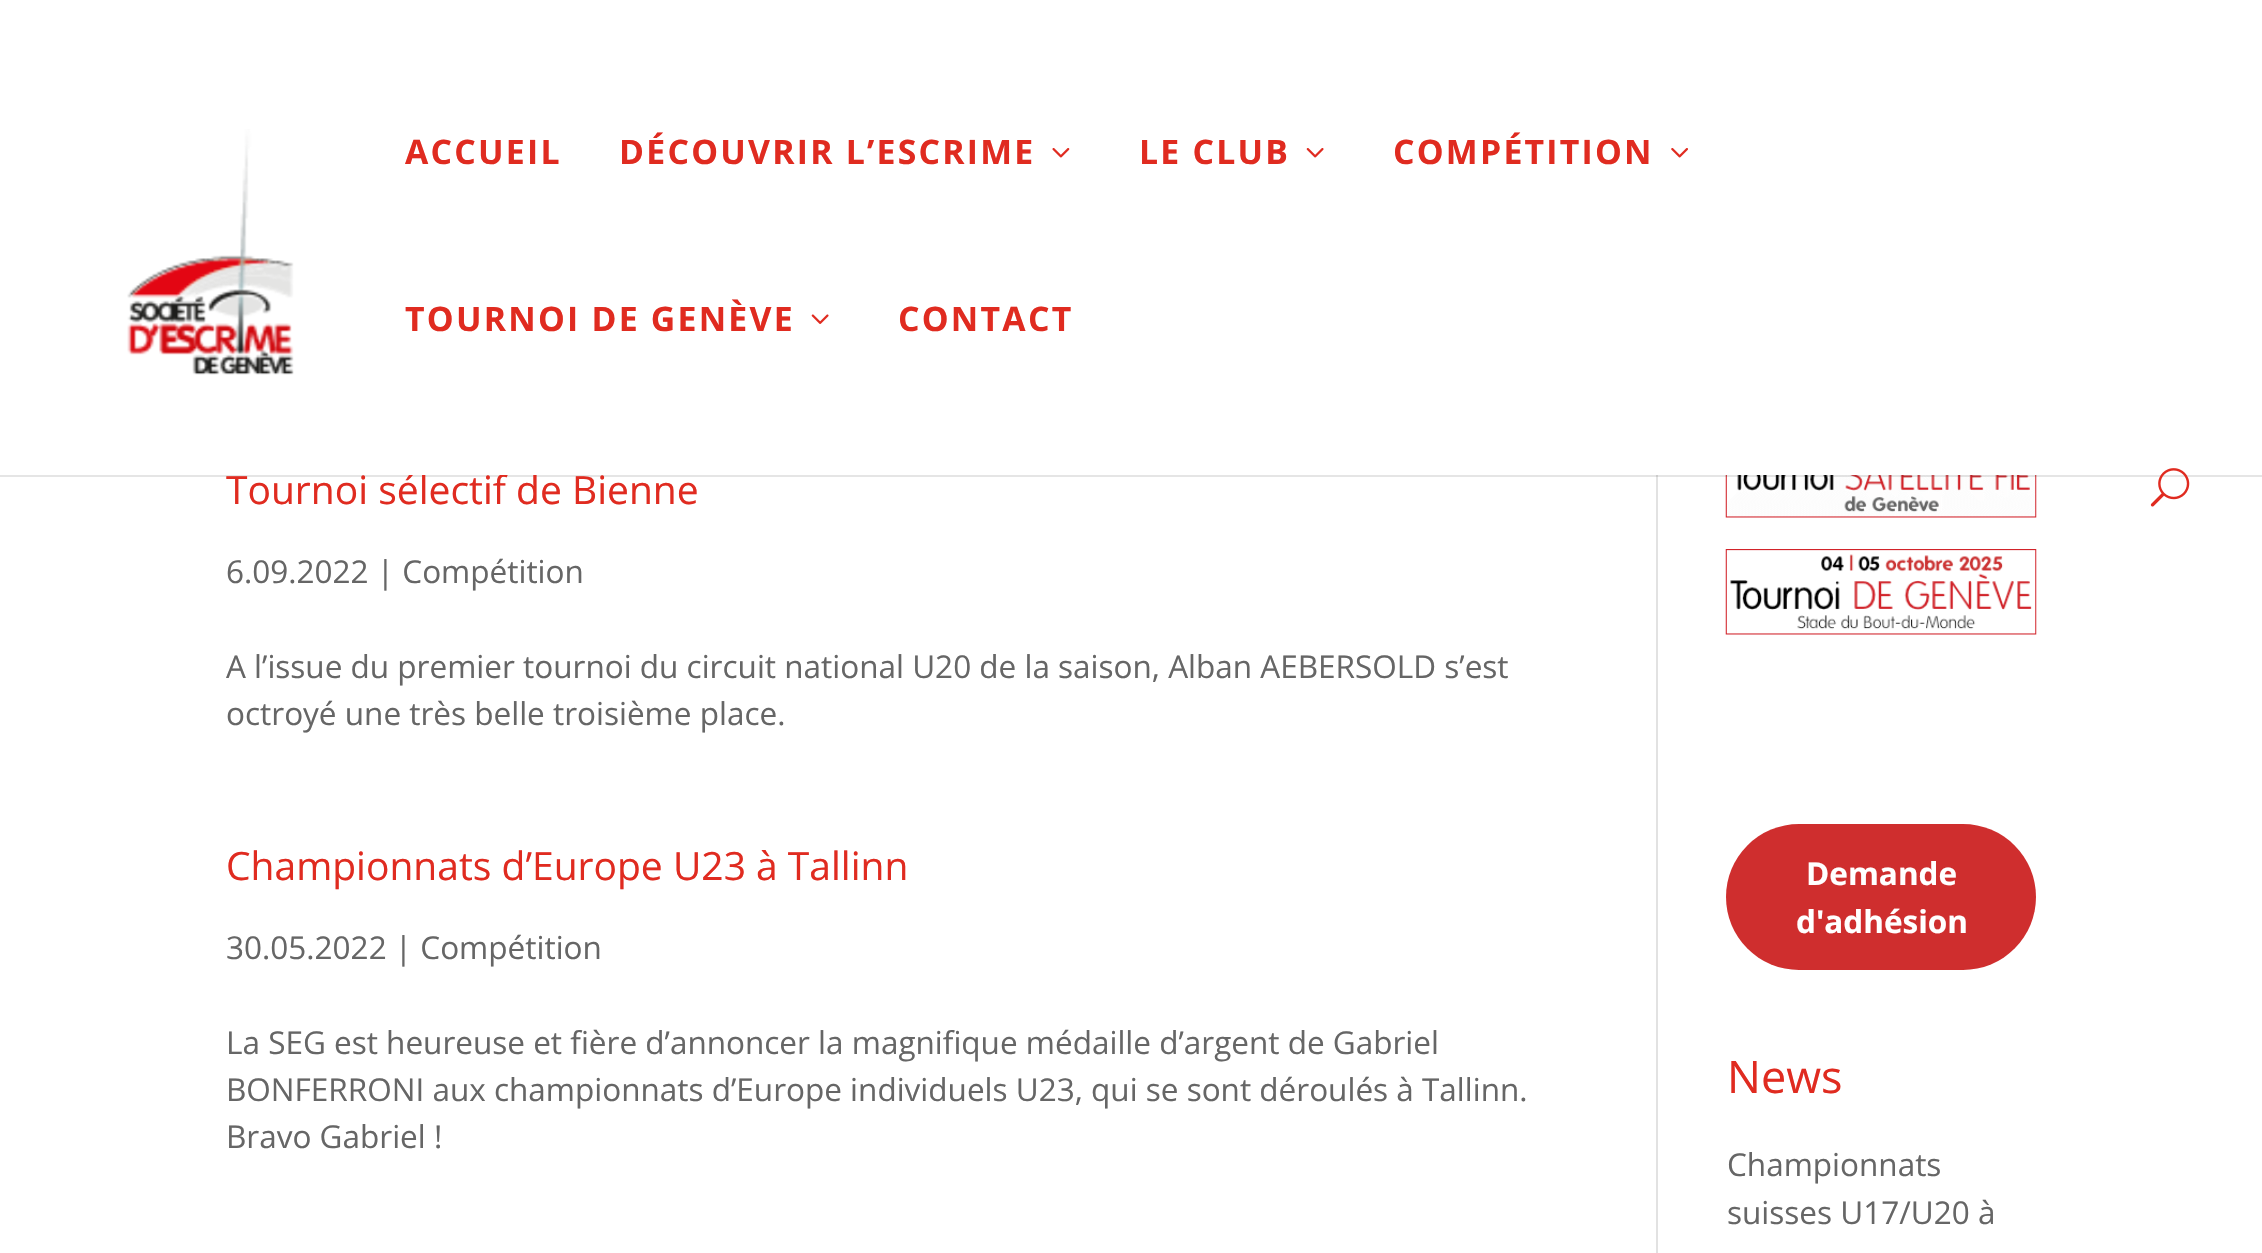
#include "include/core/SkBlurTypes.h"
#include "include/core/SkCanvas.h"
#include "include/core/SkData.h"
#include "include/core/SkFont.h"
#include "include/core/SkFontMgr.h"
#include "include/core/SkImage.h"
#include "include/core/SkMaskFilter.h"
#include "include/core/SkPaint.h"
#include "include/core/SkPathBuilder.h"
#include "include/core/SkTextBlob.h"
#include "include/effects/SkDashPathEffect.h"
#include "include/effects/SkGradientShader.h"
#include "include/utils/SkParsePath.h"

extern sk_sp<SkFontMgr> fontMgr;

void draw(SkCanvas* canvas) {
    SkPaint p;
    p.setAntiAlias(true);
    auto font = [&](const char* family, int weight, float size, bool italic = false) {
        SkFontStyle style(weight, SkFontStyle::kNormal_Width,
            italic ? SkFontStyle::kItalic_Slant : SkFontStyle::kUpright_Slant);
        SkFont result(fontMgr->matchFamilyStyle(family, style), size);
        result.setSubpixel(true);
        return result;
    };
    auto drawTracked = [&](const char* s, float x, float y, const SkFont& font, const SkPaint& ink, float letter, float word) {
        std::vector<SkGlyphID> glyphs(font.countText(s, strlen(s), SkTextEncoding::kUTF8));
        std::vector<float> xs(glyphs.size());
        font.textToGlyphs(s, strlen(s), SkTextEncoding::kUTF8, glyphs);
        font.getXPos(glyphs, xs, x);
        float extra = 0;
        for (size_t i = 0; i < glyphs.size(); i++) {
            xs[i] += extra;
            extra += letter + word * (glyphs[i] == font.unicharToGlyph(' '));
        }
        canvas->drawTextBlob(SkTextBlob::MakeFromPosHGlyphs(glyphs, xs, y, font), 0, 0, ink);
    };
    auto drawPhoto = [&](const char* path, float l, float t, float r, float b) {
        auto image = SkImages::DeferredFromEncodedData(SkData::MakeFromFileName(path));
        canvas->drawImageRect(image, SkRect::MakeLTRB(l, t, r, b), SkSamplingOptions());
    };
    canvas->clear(0xFFFFFFFF);
    drawPhoto("media/7.png", 1725, 475, 2037, 518);
    p.setColor(0xFFE2E2E2);
    canvas->drawRect(SkRect::MakeLTRB(1656, 475, 1658, 1253), p);
    p.setColor(0x1A000000);
    canvas->drawPath(SkPathBuilder().moveTo(0, 475).lineTo(0, 477).lineTo(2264, 477).lineTo(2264, 2).lineTo(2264, 475).close().detach(), p);
    auto font1 = font("Open Sans", 400, 39);
    p.setColor(0xFFE02B20);
    canvas->drawString("Tournoi sélectif de Bienne", 226, 504, font1, p);
    p.setColor(0xFFFFFFFF);
    canvas->drawRect(SkRect::MakeLTRB(409, 474, 537, 475), p);
    drawPhoto("media/1.png", 127, 129, 294, 375);
    auto font2 = font("Open Sans", 700, 33.75f);
    p.setColor(0xFFE02B20);
    drawTracked("ACCUEIL", 405, 164, font2, p, 2.25f, 0);
    drawTracked("DÉCOUVRIR L’ESCRIME", 619, 164, font2, p, 2.25f, 0);
    drawPhoto("media/2.png", 1052, 148, 1070, 158);
    drawTracked("LE CLUB", 1139, 164, font2, p, 2.25f, 0);
    drawPhoto("media/3.png", 1306, 148, 1324, 158);
    drawTracked("COMPÉTITION", 1393, 164, font2, p, 2.25f, 0);
    drawPhoto("media/4.png", 1671, 148, 1688, 158);
    drawTracked("TOURNOI DE GENÈVE", 405, 331, font2, p, 2.25f, 0);
    drawPhoto("media/5.png", 811, 314, 829, 324);
    drawTracked("CONTACT", 898, 331, font2, p, 2.25f, 0);
    drawPhoto("media/6.png", 2150, 468, 2190, 507);
    auto font3 = font("Open Sans", 400, 31.5f);
    p.setColor(0xFF666666);
    {
        const struct { const char* s; float x, y; } items[] = {
            {"6.09.2022 | Compétition", 226, 583},
            {"A l’issue du premier tournoi du circuit national U20 de la saison, Alban AEBERSOLD s’est", 226, 678},
            {"octroyé une très belle troisième place.", 226, 725},
        };
        for (auto [s, x, y] : items) {
            canvas->drawString(s, x, y, font3, p);
        }
    }
    p.setColor(0xFFE02B20);
    canvas->drawString("Championnats d’Europe U23 à Tallinn", 226, 880, font1, p);
    p.setColor(0xFF666666);
    {
        const struct { const char* s; float x, y; } items[] = {
            {"30.05.2022 | Compétition", 226, 959},
            {"La SEG est heureuse et fière d’annoncer la magnifique médaille d’argent de Gabriel", 226, 1054},
            {"BONFERRONI aux championnats d’Europe individuels U23, qui se sont déroulés à Tallinn.", 226, 1101},
            {"Bravo Gabriel !", 226, 1148},
        };
        for (auto [s, x, y] : items) {
            canvas->drawString(s, x, y, font3, p);
        }
    }
    drawPhoto("media/8.png", 1725, 549, 2037, 635);
    p.setColor(0xFFCF2E2E);
    canvas->drawRoundRect(SkRect::MakeLTRB(1726, 824, 2036, 970), 73, 73, p);
    auto font4 = font("Open Sans", 700, 31.5f);
    p.setColor(0xFFFFFFFF);
    canvas->drawString("Demande", 1806, 885, font4, p);
    canvas->drawString("d'adhésion", 1796, 933, font4, p);
    auto font5 = font("Open Sans", 400, 45);
    p.setColor(0xFFE02B20);
    canvas->drawString("News", 1727, 1093, font5, p);
    p.setColor(0xFF666666);
    canvas->drawString("Championnats", 1727, 1176, font3, p);
    canvas->drawString("suisses U17/U20 à", 1727, 1224, font3, p);
}
